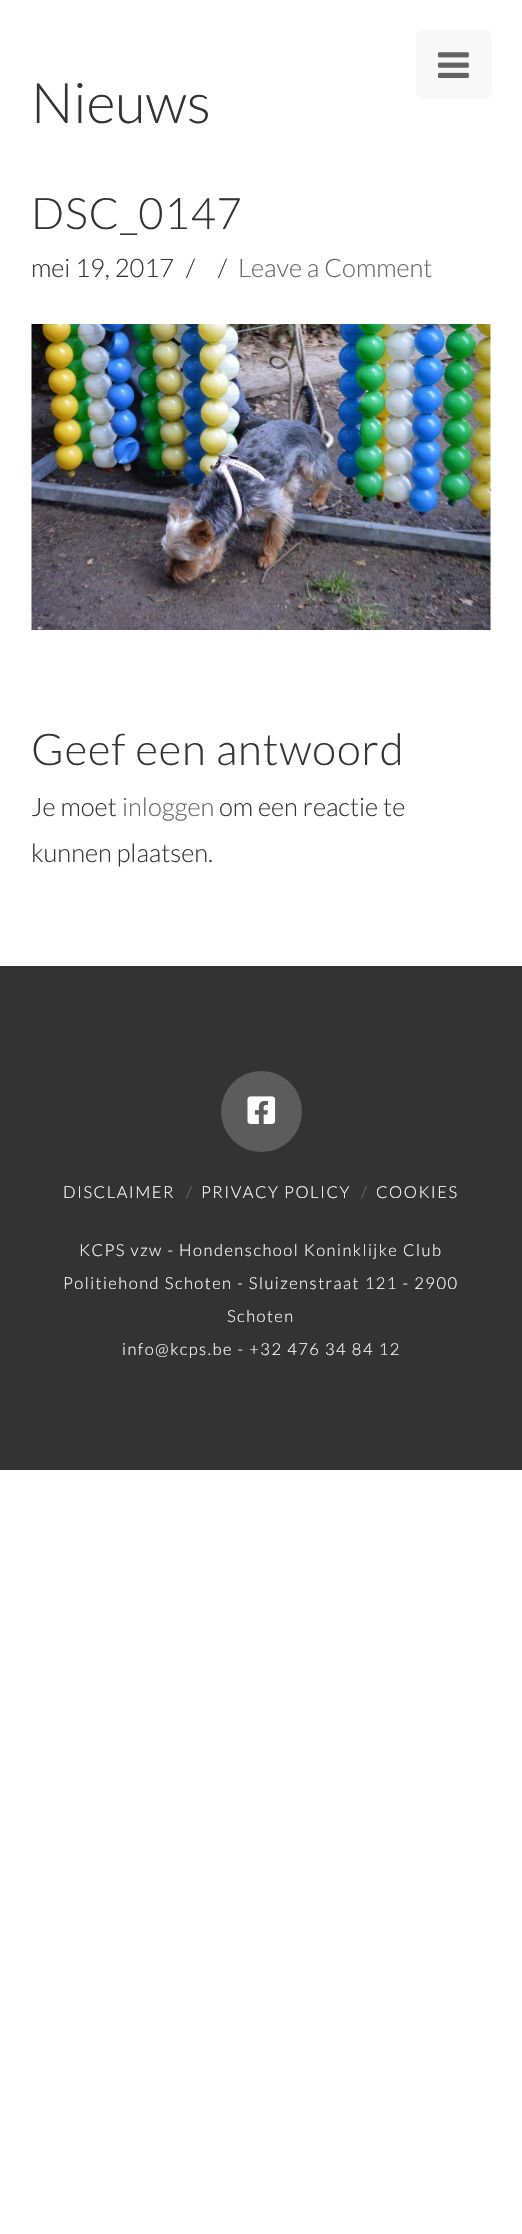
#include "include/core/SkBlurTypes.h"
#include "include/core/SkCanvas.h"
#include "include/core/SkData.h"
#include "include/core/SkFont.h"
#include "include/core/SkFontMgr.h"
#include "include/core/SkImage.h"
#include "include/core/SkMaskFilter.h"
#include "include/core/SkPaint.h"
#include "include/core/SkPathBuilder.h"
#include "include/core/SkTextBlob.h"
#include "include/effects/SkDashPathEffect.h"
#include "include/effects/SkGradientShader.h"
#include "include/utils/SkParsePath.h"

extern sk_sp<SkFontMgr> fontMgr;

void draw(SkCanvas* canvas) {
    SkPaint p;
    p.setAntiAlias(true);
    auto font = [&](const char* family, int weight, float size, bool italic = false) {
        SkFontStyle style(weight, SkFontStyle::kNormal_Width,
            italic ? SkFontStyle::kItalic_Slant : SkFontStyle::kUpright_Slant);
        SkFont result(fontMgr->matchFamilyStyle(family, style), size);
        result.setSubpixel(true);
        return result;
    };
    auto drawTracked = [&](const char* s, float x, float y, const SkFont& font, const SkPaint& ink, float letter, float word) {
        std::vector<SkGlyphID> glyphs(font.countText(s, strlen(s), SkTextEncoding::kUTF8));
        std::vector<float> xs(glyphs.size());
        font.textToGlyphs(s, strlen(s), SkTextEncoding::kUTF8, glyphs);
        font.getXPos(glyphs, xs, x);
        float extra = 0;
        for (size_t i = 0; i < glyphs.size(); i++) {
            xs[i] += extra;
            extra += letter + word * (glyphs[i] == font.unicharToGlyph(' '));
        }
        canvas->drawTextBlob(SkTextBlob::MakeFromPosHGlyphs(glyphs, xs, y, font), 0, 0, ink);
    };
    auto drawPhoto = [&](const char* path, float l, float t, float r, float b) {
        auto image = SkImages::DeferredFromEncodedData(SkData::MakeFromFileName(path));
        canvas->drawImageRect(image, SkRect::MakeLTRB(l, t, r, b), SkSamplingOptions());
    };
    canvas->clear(0xFFFFFFFF);
    p.setColor(0xFFF8F8F8);
    canvas->drawRoundRect(SkRect::MakeLTRB(416, 30, 492, 99), 6, 6, p);
    drawPhoto("media/1.png", 438, 52, 469, 78);
    auto font1 = font("Lato", 300, 56);
    p.setColor(0xFF333333);
    canvas->drawString("Nieuws", 31, 123, font1, p);
    auto font2 = font("Lato", 300, 43.5f);
    drawTracked("DSC_0147", 31, 229, font2, p, 0.9f, 0);
    auto font3 = font("Lato", 300, 25.5f);
    {
        const struct { const char* s; float x, y; } items[] = {
            {"mei 19, 2017", 31, 277},
            {"/", 186, 277},
            {"/", 218, 277},
        };
        for (auto [s, x, y] : items) {
            canvas->drawString(s, x, y, font3, p);
        }
    }
    p.setColor(0xFF666666);
    canvas->drawString("Leave a Comment", 238, 277, font3, p);
    canvas->drawRect(SkRect::MakeLTRB(490, 489, 491, 491), p);
    drawPhoto("media/2.png", 31, 324, 491, 630);
    auto font4 = font("Lato", 300, 43.75f);
    p.setColor(0xFF333333);
    drawTracked("Geef een antwoord", 31, 765, font4, p, 0.9f, 0);
    canvas->drawString("Je moet", 31, 816, font3, p);
    p.setColor(0xFF666666);
    canvas->drawString("inloggen", 122, 816, font3, p);
    p.setColor(0xFF333333);
    canvas->drawString("om een reactie te", 219, 816, font3, p);
    canvas->drawString("kunnen plaatsen.", 31, 862, font3, p);
    canvas->drawRect(SkRect::MakeLTRB(0, 966, 522, 1470), p);
    p.setColor(0xFF5C5C5C);
    canvas->drawCircle(261.5f, 1111.5f, 40.5f, p);
    drawPhoto("media/3.png", 247, 1096, 276, 1124);
    auto font5 = font("Lato", 300, 16.5f);
    p.setColor(0xFFFFFFFF);
    drawTracked("DISCLAIMER", 63, 1198, font5, p, 1.5f, 0);
    p.setColor(0xFF7A7A7A);
    canvas->drawString("/", 186, 1198, font5, p);
    p.setColor(0xFFFFFFFF);
    drawTracked("PRIVACY POLICY", 201, 1198, font5, p, 1.5f, 0);
    p.setColor(0xFF7A7A7A);
    canvas->drawString("/", 361, 1198, font5, p);
    p.setColor(0xFFFFFFFF);
    {
        const struct { const char* s; float x, y; } items[] = {
            {"COOKIES", 376, 1198},
            {"KCPS vzw - Hondenschool Koninklijke Club", 79, 1256},
            {"Politiehond Schoten - Sluizenstraat 121 - 2900", 63, 1289},
            {"Schoten", 227, 1322},
            {"info@kcps.be - +32 476 34 84 12", 122, 1355},
        };
        for (auto [s, x, y] : items) {
            drawTracked(s, x, y, font5, p, 1.5f, 0);
        }
    }
}
